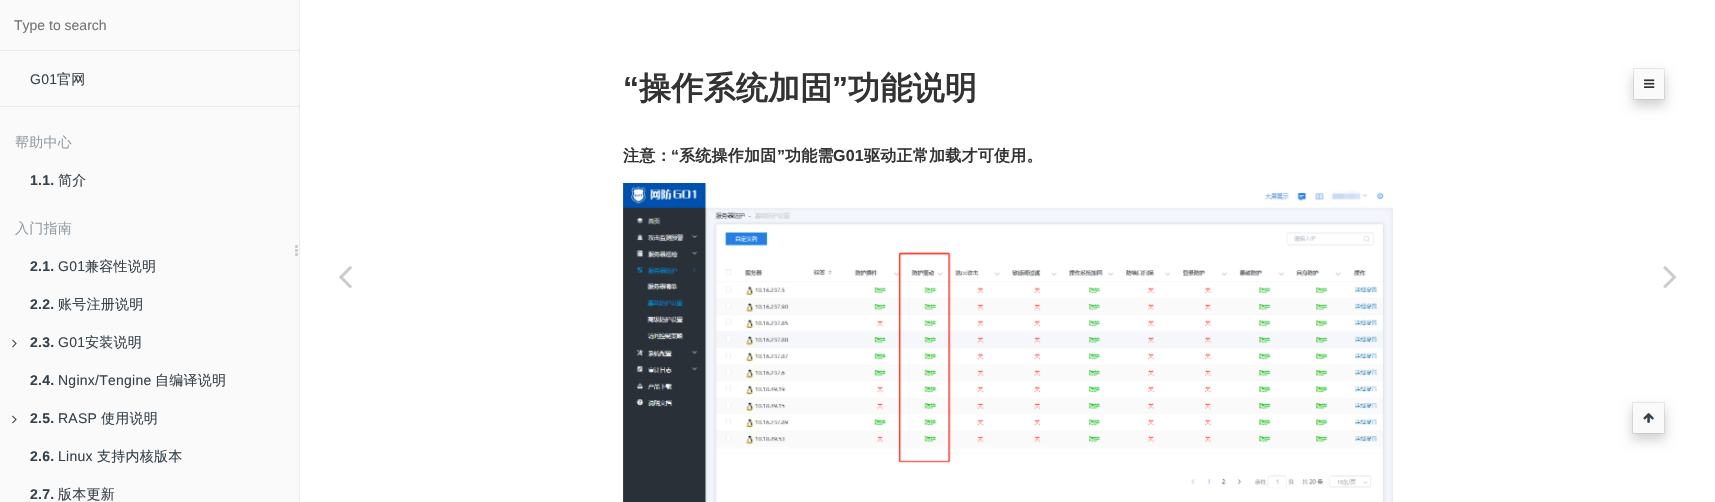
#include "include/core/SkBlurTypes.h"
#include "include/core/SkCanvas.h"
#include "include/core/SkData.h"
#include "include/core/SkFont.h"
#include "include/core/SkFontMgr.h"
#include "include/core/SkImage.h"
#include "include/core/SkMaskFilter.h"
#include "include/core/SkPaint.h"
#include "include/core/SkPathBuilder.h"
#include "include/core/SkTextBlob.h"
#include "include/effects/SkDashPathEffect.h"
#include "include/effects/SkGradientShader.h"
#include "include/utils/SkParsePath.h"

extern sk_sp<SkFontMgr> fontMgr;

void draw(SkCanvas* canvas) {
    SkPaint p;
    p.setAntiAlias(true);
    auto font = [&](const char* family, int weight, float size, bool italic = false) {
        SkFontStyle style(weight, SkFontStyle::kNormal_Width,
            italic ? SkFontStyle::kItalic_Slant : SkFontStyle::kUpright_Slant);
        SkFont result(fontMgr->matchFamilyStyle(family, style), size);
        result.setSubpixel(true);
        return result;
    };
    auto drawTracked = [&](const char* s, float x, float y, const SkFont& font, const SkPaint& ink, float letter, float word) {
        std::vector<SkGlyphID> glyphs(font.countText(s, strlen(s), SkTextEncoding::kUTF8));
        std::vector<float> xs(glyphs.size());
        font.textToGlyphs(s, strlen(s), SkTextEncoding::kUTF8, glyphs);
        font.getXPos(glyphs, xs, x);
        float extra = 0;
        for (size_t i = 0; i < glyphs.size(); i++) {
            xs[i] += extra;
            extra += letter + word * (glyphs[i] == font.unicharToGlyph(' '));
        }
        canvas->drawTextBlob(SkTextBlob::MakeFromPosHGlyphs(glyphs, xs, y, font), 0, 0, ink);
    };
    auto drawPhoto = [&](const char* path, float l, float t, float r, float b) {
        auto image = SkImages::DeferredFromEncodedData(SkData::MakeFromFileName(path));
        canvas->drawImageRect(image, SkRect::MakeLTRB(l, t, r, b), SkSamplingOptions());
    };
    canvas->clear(0xFFFFFFFF);
    {
        const struct { float l, t, r, b; SkColor color; } items[] = {
            {0, 0, 299, 502, 0xFFFAFAFA},
            {299, 0, 300, 502, 0xFFE9E9E9},
            {0, 50, 299, 51, 0xFFE9E9E9},
        };
        for (auto [l, t, r, b, color] : items) {
            p.setColor(color);
            canvas->drawRect(SkRect::MakeLTRB(l, t, r, b), p);
        }
    }
    auto font1 = font("Liberation Sans", 400, 14);
    p.setColor(0xFF757575);
    canvas->drawString("Type to search", 14, 30, font1, p);
    p.setColor(0xFF364149);
    drawTracked("G01", 30, 84, font1, p, 0.25f, 0);
    auto font2 = font("WenQuanYi Zen Hei", 500, 14);
    drawTracked("官网", 57, 84, font2, p, 0.25f, 0);
    p.setColor(0xFFE9E9E9);
    canvas->drawRect(SkRect::MakeLTRB(0, 106, 299, 107), p);
    p.setColor(0xFF939DA3);
    drawTracked("帮助中心", 15, 147, font2, p, 0.25f, 0);
    auto font3 = font("Liberation Sans", 700, 14);
    p.setColor(0xFF364149);
    drawTracked("1.1.", 30, 185, font3, p, 0.25f, 0);
    drawTracked("简介", 58, 185, font2, p, 0.25f, 0);
    p.setColor(0xFF939DA3);
    drawTracked("入门指南", 15, 233, font2, p, 0.25f, 0);
    p.setColor(0xFF364149);
    drawTracked("2.1.", 30, 271, font3, p, 0.25f, 0);
    drawTracked("G01", 58, 271, font1, p, 0.25f, 0);
    drawTracked("兼容性说明", 85, 271, font2, p, 0.25f, 0);
    drawTracked("2.2.", 30, 309, font3, p, 0.25f, 0);
    drawTracked("账号注册说明", 58, 309, font2, p, 0.25f, 0);
    drawPhoto("media/1.png", 12, 339, 17, 348);
    drawTracked("2.3.", 30, 347, font3, p, 0.25f, 0);
    drawTracked("G01", 58, 347, font1, p, 0.25f, 0);
    drawTracked("安装说明", 85, 347, font2, p, 0.25f, 0);
    drawTracked("2.4.", 30, 385, font3, p, 0.25f, 0);
    drawTracked("Nginx/Tengine", 58, 385, font1, p, 0.25f, 0);
    drawTracked("自编译说明", 155, 385, font2, p, 0.25f, 0);
    drawPhoto("media/1.png", 12, 415, 17, 424);
    drawTracked("2.5.", 30, 423, font3, p, 0.25f, 0);
    drawTracked("RASP", 58, 423, font1, p, 0.25f, 0);
    drawTracked("使用说明", 101, 423, font2, p, 0.25f, 0);
    drawTracked("2.6.", 30, 461, font3, p, 0.25f, 0);
    drawTracked("Linux", 58, 461, font1, p, 0.25f, 0);
    drawTracked("支持内核版本", 97, 461, font2, p, 0.25f, 0);
    drawTracked("2.7.", 30, 499, font3, p, 0.25f, 0);
    drawTracked("版本更新", 58, 499, font2, p, 0.25f, 0);
    drawPhoto("media/2.png", 295, 245, 298, 256);
    auto font4 = font("Liberation Sans", 700, 32);
    p.setColor(0xFF333333);
    drawTracked("“", 623, 99, font4, p, 0.25f, 0);
    auto font5 = font("WenQuanYi Zen Hei", 700, 32);
    drawTracked("操作系统加固", 639, 99, font5, p, 0.25f, 0);
    drawTracked("”", 832, 99, font4, p, 0.25f, 0);
    drawTracked("功能说明", 848, 99, font5, p, 0.25f, 0);
    p.setColor(0x2E000000);
    p.setMaskFilter(SkMaskFilter::MakeBlur(kNormal_SkBlurStyle, 6));
    canvas->drawRoundRect(SkRect::MakeLTRB(1633, 74, 1665, 106), 1, 1, p);
    p.setMaskFilter(nullptr);
    p.setColor(0xFFFAFAFA);
    canvas->drawRect(SkRect::MakeLTRB(1634, 69, 1664, 99), p);
    p.setStyle(SkPaint::kStroke_Style);
    p.setStrokeWidth(1);
    p.setColor(0x12000000);
    canvas->drawRect(SkRect::MakeLTRB(1633.5f, 68.5f, 1664.5f, 99.5f), p);
    drawPhoto("media/3.png", 1644, 79, 1655, 88);
    auto font6 = font("WenQuanYi Zen Hei", 700, 16);
    p.setStyle(SkPaint::kFill_Style);
    p.setColor(0xFF333333);
    drawTracked("注意：", 623, 161, font6, p, 0.25f, 0);
    auto font7 = font("Liberation Sans", 700, 16);
    drawTracked("“", 671, 161, font7, p, 0.25f, 0);
    drawTracked("系统操作加固", 679, 161, font6, p, 0.25f, 0);
    drawTracked("”", 777, 161, font7, p, 0.25f, 0);
    drawTracked("功能需", 785, 161, font6, p, 0.25f, 0);
    drawTracked("G01", 833, 161, font7, p, 0.25f, 0);
    drawTracked("驱动正常加载才可使用。", 864, 161, font6, p, 0.25f, 0);
    drawPhoto("media/4.png", 623, 183, 1393, 502);
    p.setColor(0x2E000000);
    p.setMaskFilter(SkMaskFilter::MakeBlur(kNormal_SkBlurStyle, 6));
    canvas->drawRoundRect(SkRect::MakeLTRB(1632, 408, 1665, 440), 1, 1, p);
    p.setMaskFilter(nullptr);
    p.setColor(0xFFFAFAFA);
    canvas->drawRect(SkRect::MakeLTRB(1633, 403, 1664, 433), p);
    p.setStyle(SkPaint::kStroke_Style);
    p.setColor(0x12000000);
    canvas->drawRect(SkRect::MakeLTRB(1632.5f, 402.5f, 1664.5f, 433.5f), p);
    drawPhoto("media/5.png", 1643, 413, 1654, 423);
    drawPhoto("media/6.png", 339, 266, 352, 289);
    drawPhoto("media/7.png", 1663, 266, 1677, 289);
}
